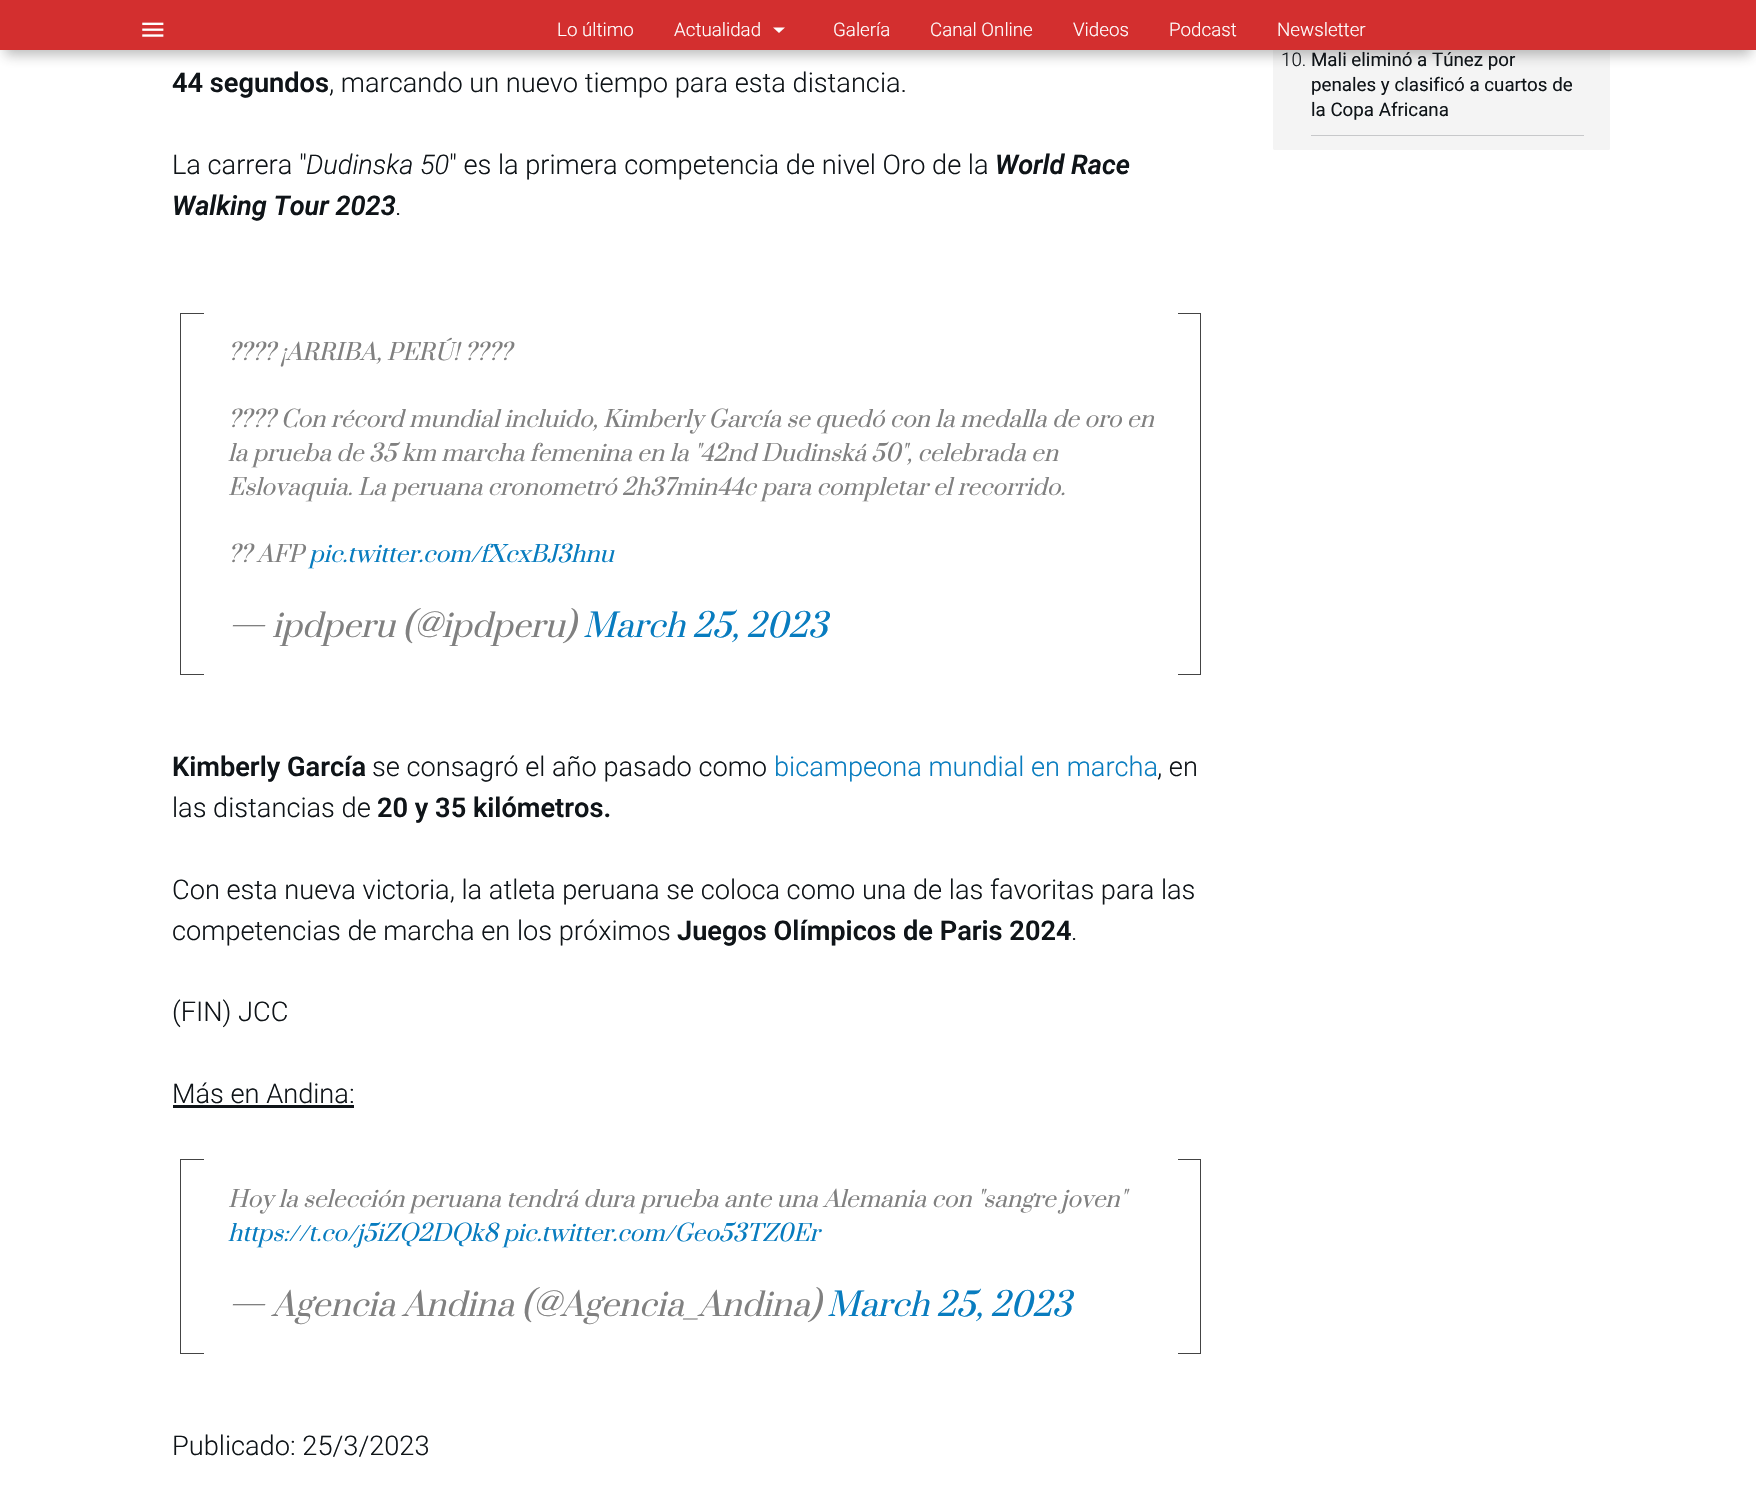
#include "include/core/SkBlurTypes.h"
#include "include/core/SkCanvas.h"
#include "include/core/SkData.h"
#include "include/core/SkFont.h"
#include "include/core/SkFontMgr.h"
#include "include/core/SkImage.h"
#include "include/core/SkMaskFilter.h"
#include "include/core/SkPaint.h"
#include "include/core/SkPathBuilder.h"
#include "include/core/SkTextBlob.h"
#include "include/effects/SkDashPathEffect.h"
#include "include/effects/SkGradientShader.h"
#include "include/utils/SkParsePath.h"

extern sk_sp<SkFontMgr> fontMgr;

void draw(SkCanvas* canvas) {
    SkPaint p;
    p.setAntiAlias(true);
    auto font = [&](const char* family, int weight, float size, bool italic = false) {
        SkFontStyle style(weight, SkFontStyle::kNormal_Width,
            italic ? SkFontStyle::kItalic_Slant : SkFontStyle::kUpright_Slant);
        SkFont result(fontMgr->matchFamilyStyle(family, style), size);
        result.setSubpixel(true);
        return result;
    };
    auto drawPhoto = [&](const char* path, float l, float t, float r, float b) {
        auto image = SkImages::DeferredFromEncodedData(SkData::MakeFromFileName(path));
        canvas->drawImageRect(image, SkRect::MakeLTRB(l, t, r, b), SkSamplingOptions());
    };
    canvas->clear(0xFFFFFFFF);
    p.setColor(0xFFF4F4F4);
    canvas->drawRoundRect(SkRect::MakeLTRB(1273, -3, 1610, 150), 2.5f, 2.5f, p);
    canvas->drawPath(SkPathBuilder(SkPathFillType::kEvenOdd).moveTo(1276, -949).cubicTo(1274, -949, 1273, -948, 1273, -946).lineTo(1273, 148).cubicTo(1273, 149, 1274, 150, 1276, 150).lineTo(1608, 150).cubicTo(1609, 150, 1610, 149, 1610, 148).lineTo(1610, -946).cubicTo(1610, -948, 1609, -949, 1608, -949).close().moveTo(1274, -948).lineTo(1274, 149).lineTo(1609, 149).lineTo(1609, -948).close().detach(), p);
    p.setColor(0x54323232);
    p.setMaskFilter(SkMaskFilter::MakeBlur(kNormal_SkBlurStyle, 6));
    canvas->drawRect(SkRect::MakeLTRB(5, 15, 1751, 55), p);
    p.setMaskFilter(nullptr);
    p.setColor(0xFFD32F2F);
    canvas->drawRect(SkRect::MakeLTRB(0, 0, 1756, 50), p);
    drawPhoto("media/1.png", 142, 22, 164, 37);
    auto font1 = font("Roboto", 300, 18.75f);
    p.setColor(0xFFFFFFFF);
    canvas->drawString("Lo último", 557, 36, font1, p);
    canvas->drawString("Actualidad", 674, 36, font1, p);
    canvas->drawPath(SkPathBuilder().moveTo(773, 27.5f).lineTo(785, 27.5f).lineTo(779, 33).close().detach(), p);
    {
        const struct { const char* s; float x, y; } items[] = {
            {"Galería", 833, 36},
            {"Canal Online", 930, 36},
            {"Videos", 1073, 36},
            {"Podcast", 1169, 36},
            {"Newsletter", 1277, 36},
        };
        for (auto [s, x, y] : items) {
            canvas->drawString(s, x, y, font1, p);
        }
    }
    auto font2 = font("Roboto", 600, 27.2f);
    p.setColor(0xFF0F1418);
    canvas->drawString("44 segundos", 172, 92, font2, p);
    auto font3 = font("Roboto", 300, 27.2f);
    canvas->drawString(", marcando un nuevo tiempo para esta distancia.", 329, 92, font3, p);
    canvas->drawString("La carrera \"", 172, 174, font3, p);
    auto font4 = font("Roboto", 300, 27.2f, true);
    canvas->drawString("Dudinska 50", 306, 174, font4, p);
    canvas->drawString("\" es la primera competencia de nivel Oro de la", 449, 174, font3, p);
    auto font5 = font("Roboto", 600, 27.2f, true);
    canvas->drawString("World Race", 995, 174, font5, p);
    canvas->drawString("Walking Tour 2023", 172, 215, font5, p);
    canvas->drawString(".", 395, 215, font3, p);
    {
        const struct { float l, t, r, b; SkColor color; } items[] = {
            {180, 313, 204, 314, 0xFF444444},
            {180, 674, 204, 675, 0xFF444444},
            {180, 313, 181, 675, 0xFF444444},
        };
        for (auto [l, t, r, b, color] : items) {
            p.setColor(color);
            canvas->drawRect(SkRect::MakeLTRB(l, t, r, b), p);
        }
    }
    auto font6 = font("Prata", 400, 22.5f, true);
    p.setColor(0xFF808080);
    {
        const struct { const char* s; float x, y; } items[] = {
            {"?\077?\077 ¡ARRIBA, PERÚ! ?\077?\077", 228, 360},
            {"?\077?\077 Con récord mundial incluido, Kimberly García se quedó con la medalla de oro en", 228, 427},
            {"la prueba de 35 km marcha femenina en la \"42nd Dudinská 50\", celebrada en", 228, 461},
            {"Eslovaquia. La peruana cronometró 2h37min44c para completar el recorrido.", 228, 495},
            {"?\077 AFP", 228, 562},
        };
        for (auto [s, x, y] : items) {
            canvas->drawString(s, x, y, font6, p);
        }
    }
    p.setColor(0xFF087CBF);
    canvas->drawString("pic.twitter.com/fXcxBJ3hnu", 309, 562, font6, p);
    {
        const struct { float l, t, r, b; SkColor color; } items[] = {
            {1178, 313, 1201, 314, 0xFF444444},
            {1200, 313, 1201, 675, 0xFF444444},
            {1178, 674, 1201, 675, 0xFF444444},
        };
        for (auto [l, t, r, b, color] : items) {
            p.setColor(color);
            canvas->drawRect(SkRect::MakeLTRB(l, t, r, b), p);
        }
    }
    auto font7 = font("Prata", 400, 31.9f, true);
    p.setColor(0xFF808080);
    canvas->drawString("— ipdperu (@ipdperu)", 228, 637, font7, p);
    p.setColor(0xFF087CBF);
    canvas->drawString("March 25, 2023", 583, 637, font7, p);
    p.setColor(0xFF0F1418);
    canvas->drawString("Kimberly García", 172, 776, font2, p);
    canvas->drawString("se consagró el año pasado como", 372, 776, font3, p);
    p.setColor(0xFF087CBF);
    canvas->drawString("bicampeona mundial en marcha", 774, 776, font3, p);
    p.setColor(0xFF0F1418);
    canvas->drawString(", en", 1157, 776, font3, p);
    canvas->drawString("las distancias de", 172, 817, font3, p);
    canvas->drawString("20 y 35 kilómetros.", 377, 817, font2, p);
    canvas->drawString("Con esta nueva victoria, la atleta peruana se coloca como una de las favoritas para las", 172, 899, font3, p);
    canvas->drawString("competencias de marcha en los próximos", 172, 940, font3, p);
    canvas->drawString("Juegos Olímpicos de Paris 2024", 677, 940, font2, p);
    {
        const struct { const char* s; float x, y; } items[] = {
            {".", 1071, 940},
            {"(FIN) JCC", 172, 1021},
            {"Más en Andina:", 172, 1103},
        };
        for (auto [s, x, y] : items) {
            canvas->drawString(s, x, y, font3, p);
        }
    }
    {
        const struct { float l, t, r, b; SkColor color; } items[] = {
            {173, 1105, 354, 1108, 0xFF0F1418},
            {180, 1159, 204, 1160, 0xFF444444},
            {180, 1353, 204, 1354, 0xFF444444},
            {180, 1159, 181, 1354, 0xFF444444},
        };
        for (auto [l, t, r, b, color] : items) {
            p.setColor(color);
            canvas->drawRect(SkRect::MakeLTRB(l, t, r, b), p);
        }
    }
    p.setColor(0xFF808080);
    canvas->drawString("Hoy la selección peruana tendrá dura prueba ante una Alemania con \"sangre joven\"", 228, 1207, font6, p);
    p.setColor(0xFF087CBF);
    canvas->drawString("https://t.co/j5iZQ2DQk8 pic.twitter.com/Geo53TZ0Er", 228, 1241, font6, p);
    {
        const struct { float l, t, r, b; SkColor color; } items[] = {
            {1178, 1159, 1201, 1160, 0xFF444444},
            {1200, 1159, 1201, 1354, 0xFF444444},
            {1178, 1353, 1201, 1354, 0xFF444444},
        };
        for (auto [l, t, r, b, color] : items) {
            p.setColor(color);
            canvas->drawRect(SkRect::MakeLTRB(l, t, r, b), p);
        }
    }
    p.setColor(0xFF808080);
    canvas->drawString("— Agencia Andina (@Agencia_Andina)", 228, 1316, font7, p);
    p.setColor(0xFF087CBF);
    canvas->drawString("March 25, 2023", 827, 1316, font7, p);
    p.setColor(0xFF0F1418);
    canvas->drawString("Publicado: 25/3/2023", 172, 1455, font3, p);
    canvas->drawString("10.", 1281, 66, font1, p);
    auto font8 = font("Roboto", 400, 18.75f);
    {
        const struct { const char* s; float x, y; } items[] = {
            {"Mali eliminó a Túnez por", 1311, 66},
            {"penales y clasificó a cuartos de", 1311, 91},
            {"la Copa Africana", 1311, 116},
        };
        for (auto [s, x, y] : items) {
            canvas->drawString(s, x, y, font8, p);
        }
    }
    p.setColor(0xFFC7C8CA);
    canvas->drawRect(SkRect::MakeLTRB(1311, 135, 1584, 136), p);
}
